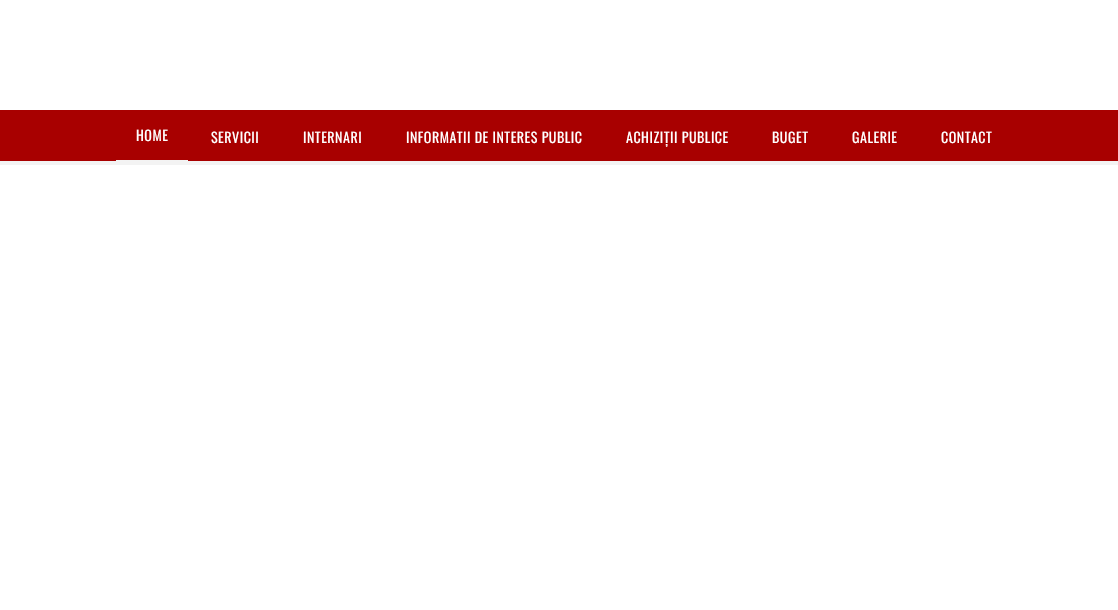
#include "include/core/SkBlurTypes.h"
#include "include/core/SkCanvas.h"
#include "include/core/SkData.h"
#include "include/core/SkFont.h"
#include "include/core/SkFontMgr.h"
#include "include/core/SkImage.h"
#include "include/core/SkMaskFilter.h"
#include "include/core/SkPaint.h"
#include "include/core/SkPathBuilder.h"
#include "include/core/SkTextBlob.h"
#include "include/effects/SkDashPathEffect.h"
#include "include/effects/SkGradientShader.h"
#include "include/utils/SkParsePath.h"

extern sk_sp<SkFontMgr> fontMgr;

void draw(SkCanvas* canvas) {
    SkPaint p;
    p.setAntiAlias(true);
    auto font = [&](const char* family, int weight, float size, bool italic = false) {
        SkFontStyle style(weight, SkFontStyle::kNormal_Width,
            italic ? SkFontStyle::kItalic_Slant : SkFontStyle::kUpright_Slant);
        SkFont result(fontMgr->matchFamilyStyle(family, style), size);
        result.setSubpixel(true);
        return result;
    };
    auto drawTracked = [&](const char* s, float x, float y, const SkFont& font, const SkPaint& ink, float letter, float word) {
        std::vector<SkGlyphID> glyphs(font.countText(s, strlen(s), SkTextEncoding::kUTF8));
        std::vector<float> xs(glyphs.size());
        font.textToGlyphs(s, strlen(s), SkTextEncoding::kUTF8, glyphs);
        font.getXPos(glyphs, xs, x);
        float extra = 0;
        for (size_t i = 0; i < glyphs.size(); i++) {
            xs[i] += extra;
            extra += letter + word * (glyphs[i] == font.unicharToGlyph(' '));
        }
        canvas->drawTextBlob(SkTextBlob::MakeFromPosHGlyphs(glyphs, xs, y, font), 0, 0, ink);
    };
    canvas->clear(0xFFFFFFFF);
    p.setColor(0xFFA80000);
    canvas->drawRect(SkRect::MakeLTRB(0, 110, 1118, 161), p);
    p.setColor(0xFFF3F3F3);
    canvas->drawRect(SkRect::MakeLTRB(0, 161, 1118, 165), p);
    auto font1 = font("Oswald", 400, 14);
    p.setColor(0xFFFFFFFF);
    drawTracked("HOME", 136, 141, font1, p, 0.5f, 0);
    p.setColor(0xFFF3F3F3);
    canvas->drawRect(SkRect::MakeLTRB(116, 160, 188, 161), p);
    p.setColor(0xFFFFFFFF);
    {
        const struct { const char* s; float x, y; } items[] = {
            {"SERVICII", 211, 143},
            {"INTERNARI", 303, 143},
            {"INFORMATII DE INTERES PUBLIC", 406, 143},
            {"ACHIZIȚII PUBLICE", 626, 143},
            {"BUGET", 772, 143},
            {"GALERIE", 852, 143},
            {"CONTACT", 941, 143},
        };
        for (auto [s, x, y] : items) {
            drawTracked(s, x, y, font1, p, 0.5f, 0);
        }
    }
}
